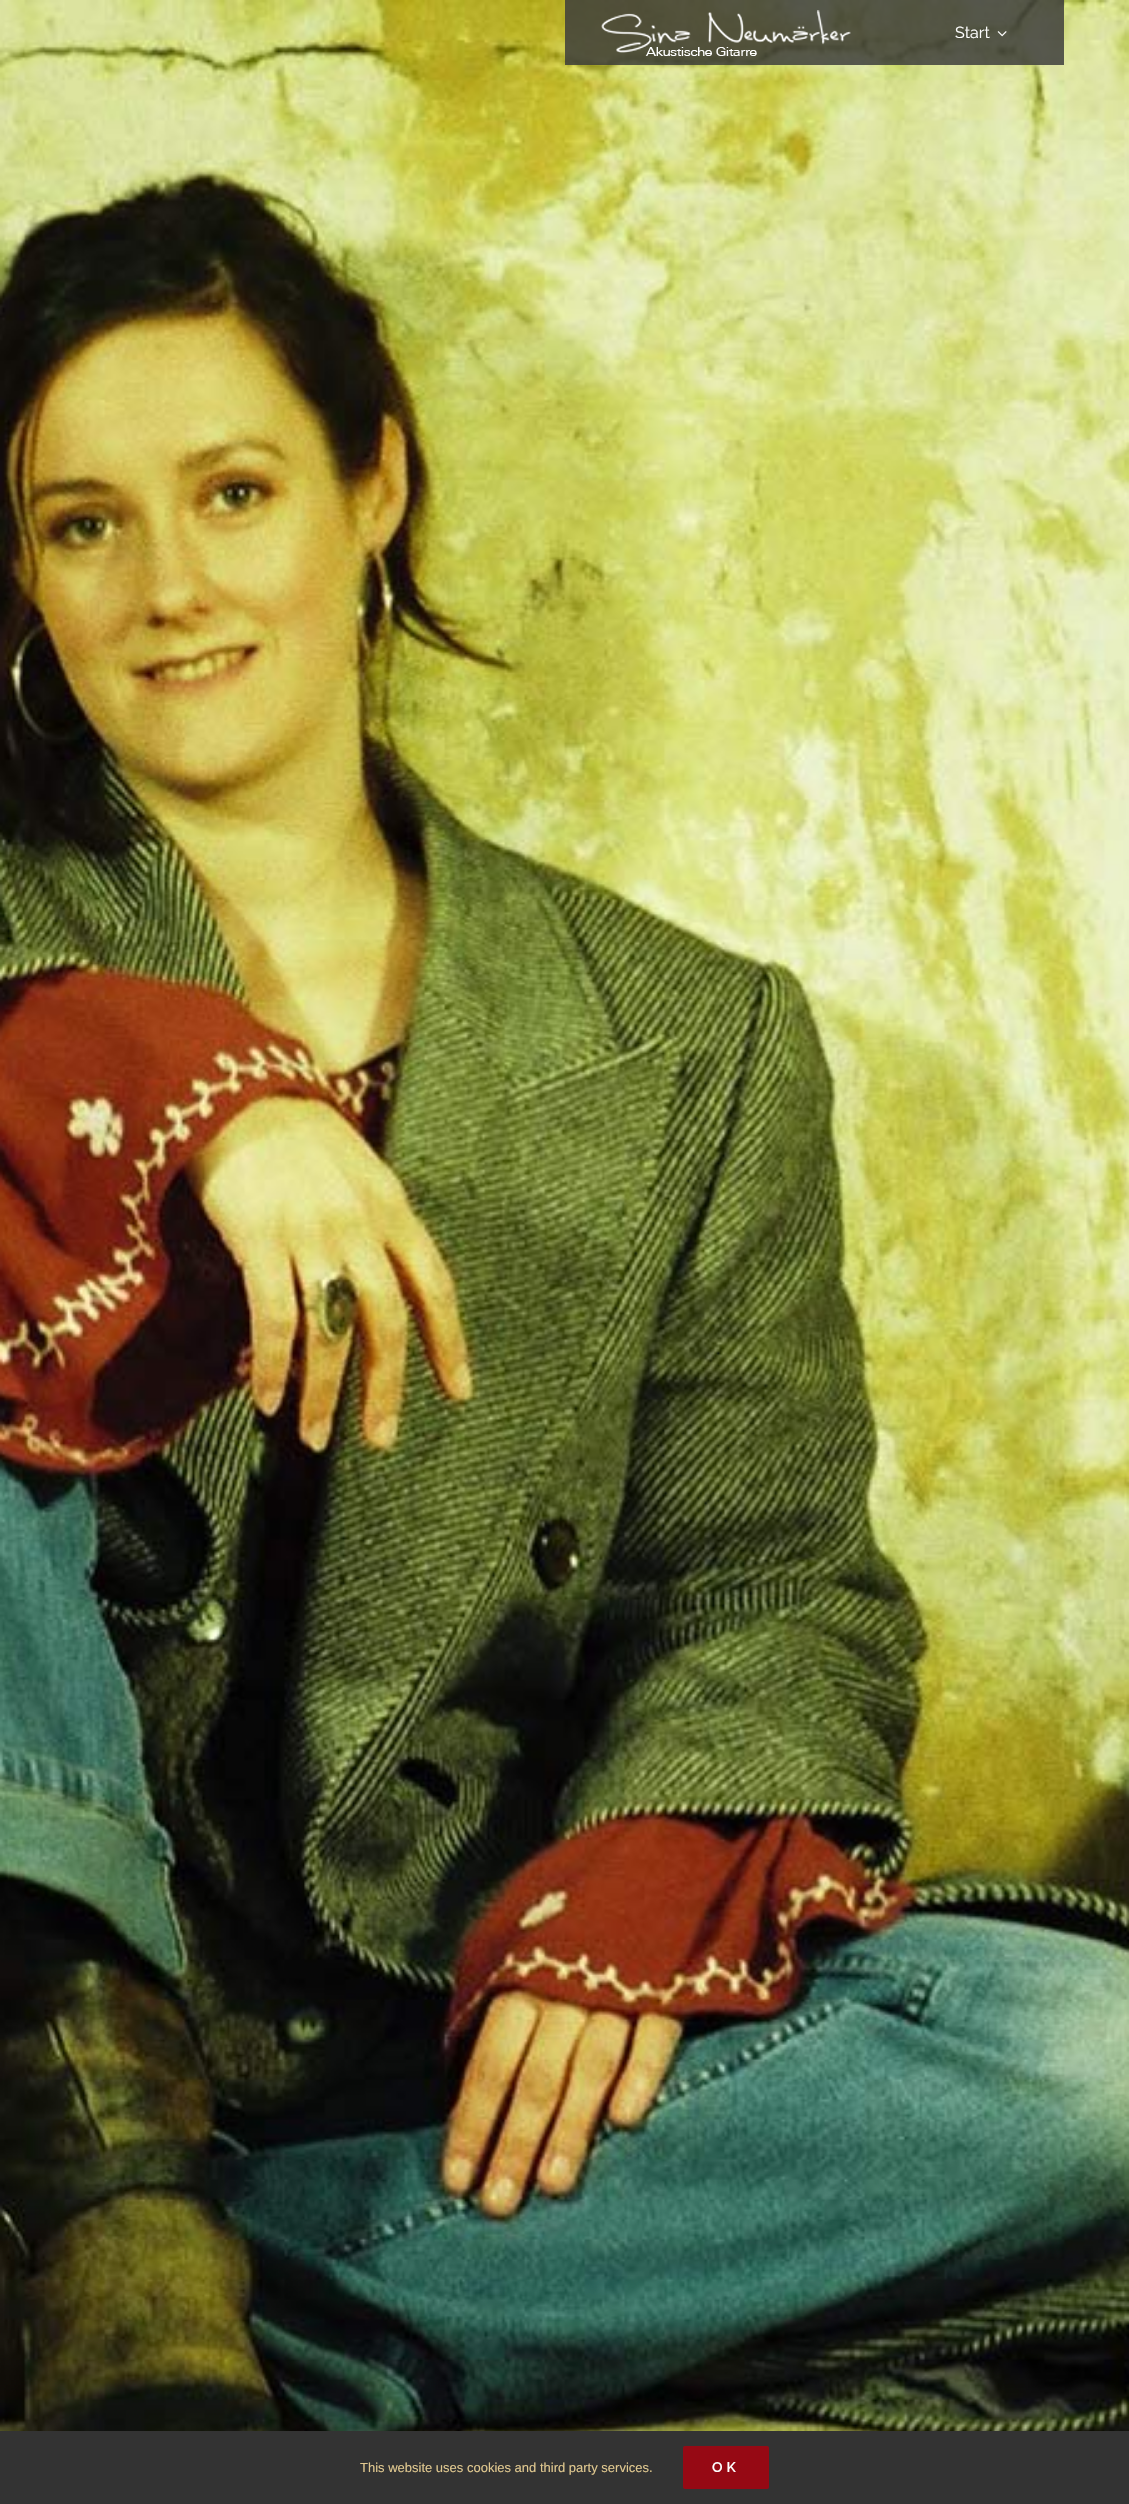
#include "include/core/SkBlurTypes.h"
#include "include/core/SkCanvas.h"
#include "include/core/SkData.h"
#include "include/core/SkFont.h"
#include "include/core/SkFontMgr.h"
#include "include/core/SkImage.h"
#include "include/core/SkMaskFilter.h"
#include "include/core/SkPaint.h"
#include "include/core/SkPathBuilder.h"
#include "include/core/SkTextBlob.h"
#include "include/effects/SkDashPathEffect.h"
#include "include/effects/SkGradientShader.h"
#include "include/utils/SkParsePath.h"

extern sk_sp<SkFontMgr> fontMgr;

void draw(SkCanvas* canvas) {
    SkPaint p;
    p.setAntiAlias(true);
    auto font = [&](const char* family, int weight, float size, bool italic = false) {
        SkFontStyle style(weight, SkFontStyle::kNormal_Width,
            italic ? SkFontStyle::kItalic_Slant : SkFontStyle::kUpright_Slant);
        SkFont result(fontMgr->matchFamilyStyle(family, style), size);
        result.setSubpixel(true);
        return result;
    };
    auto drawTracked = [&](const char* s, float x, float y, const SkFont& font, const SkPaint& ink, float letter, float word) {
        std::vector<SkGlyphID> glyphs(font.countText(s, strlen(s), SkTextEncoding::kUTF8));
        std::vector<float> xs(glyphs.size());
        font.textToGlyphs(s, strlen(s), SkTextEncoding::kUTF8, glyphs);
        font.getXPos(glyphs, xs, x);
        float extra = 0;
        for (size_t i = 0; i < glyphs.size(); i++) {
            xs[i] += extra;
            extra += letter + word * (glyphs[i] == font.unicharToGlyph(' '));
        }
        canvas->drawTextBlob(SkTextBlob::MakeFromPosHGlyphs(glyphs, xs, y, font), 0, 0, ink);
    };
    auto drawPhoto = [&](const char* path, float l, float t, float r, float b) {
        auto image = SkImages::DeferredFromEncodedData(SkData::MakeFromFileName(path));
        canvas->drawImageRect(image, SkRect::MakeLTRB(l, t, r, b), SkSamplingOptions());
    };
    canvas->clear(0xFFFFFFFF);
    drawPhoto("media/1.png", 0, 0, 1129, 2431);
    p.setColor(0xD43A3A3A);
    canvas->drawRect(SkRect::MakeLTRB(565, 0, 898, 65), p);
    drawPhoto("media/2.png", 601, 10, 851, 56);
    canvas->drawRect(SkRect::MakeLTRB(898, 0, 1064, 65), p);
    auto font1 = font("Raleway", 400, 16);
    p.setColor(0xFFFFFFFF);
    canvas->drawString("Start", 955, 38, font1, p);
    drawPhoto("media/3.png", 997, 31, 1007, 37);
    p.setColor(0xFF333333);
    canvas->drawRect(SkRect::MakeLTRB(0, 2431, 1129, 2504), p);
    auto font2 = font("Liberation Sans", 400, 13);
    p.setColor(0xFFE0C88F);
    canvas->drawString("This website uses cookies and third party services.", 360, 2472, font2, p);
    p.setColor(0xFF960914);
    canvas->drawRoundRect(SkRect::MakeLTRB(683, 2446, 769, 2489), 2, 2, p);
    auto font3 = font("Raleway", 600, 14);
    p.setColor(0xFFFFFFFF);
    drawTracked("OK", 712, 2472, font3, p, 4, 0);
}
